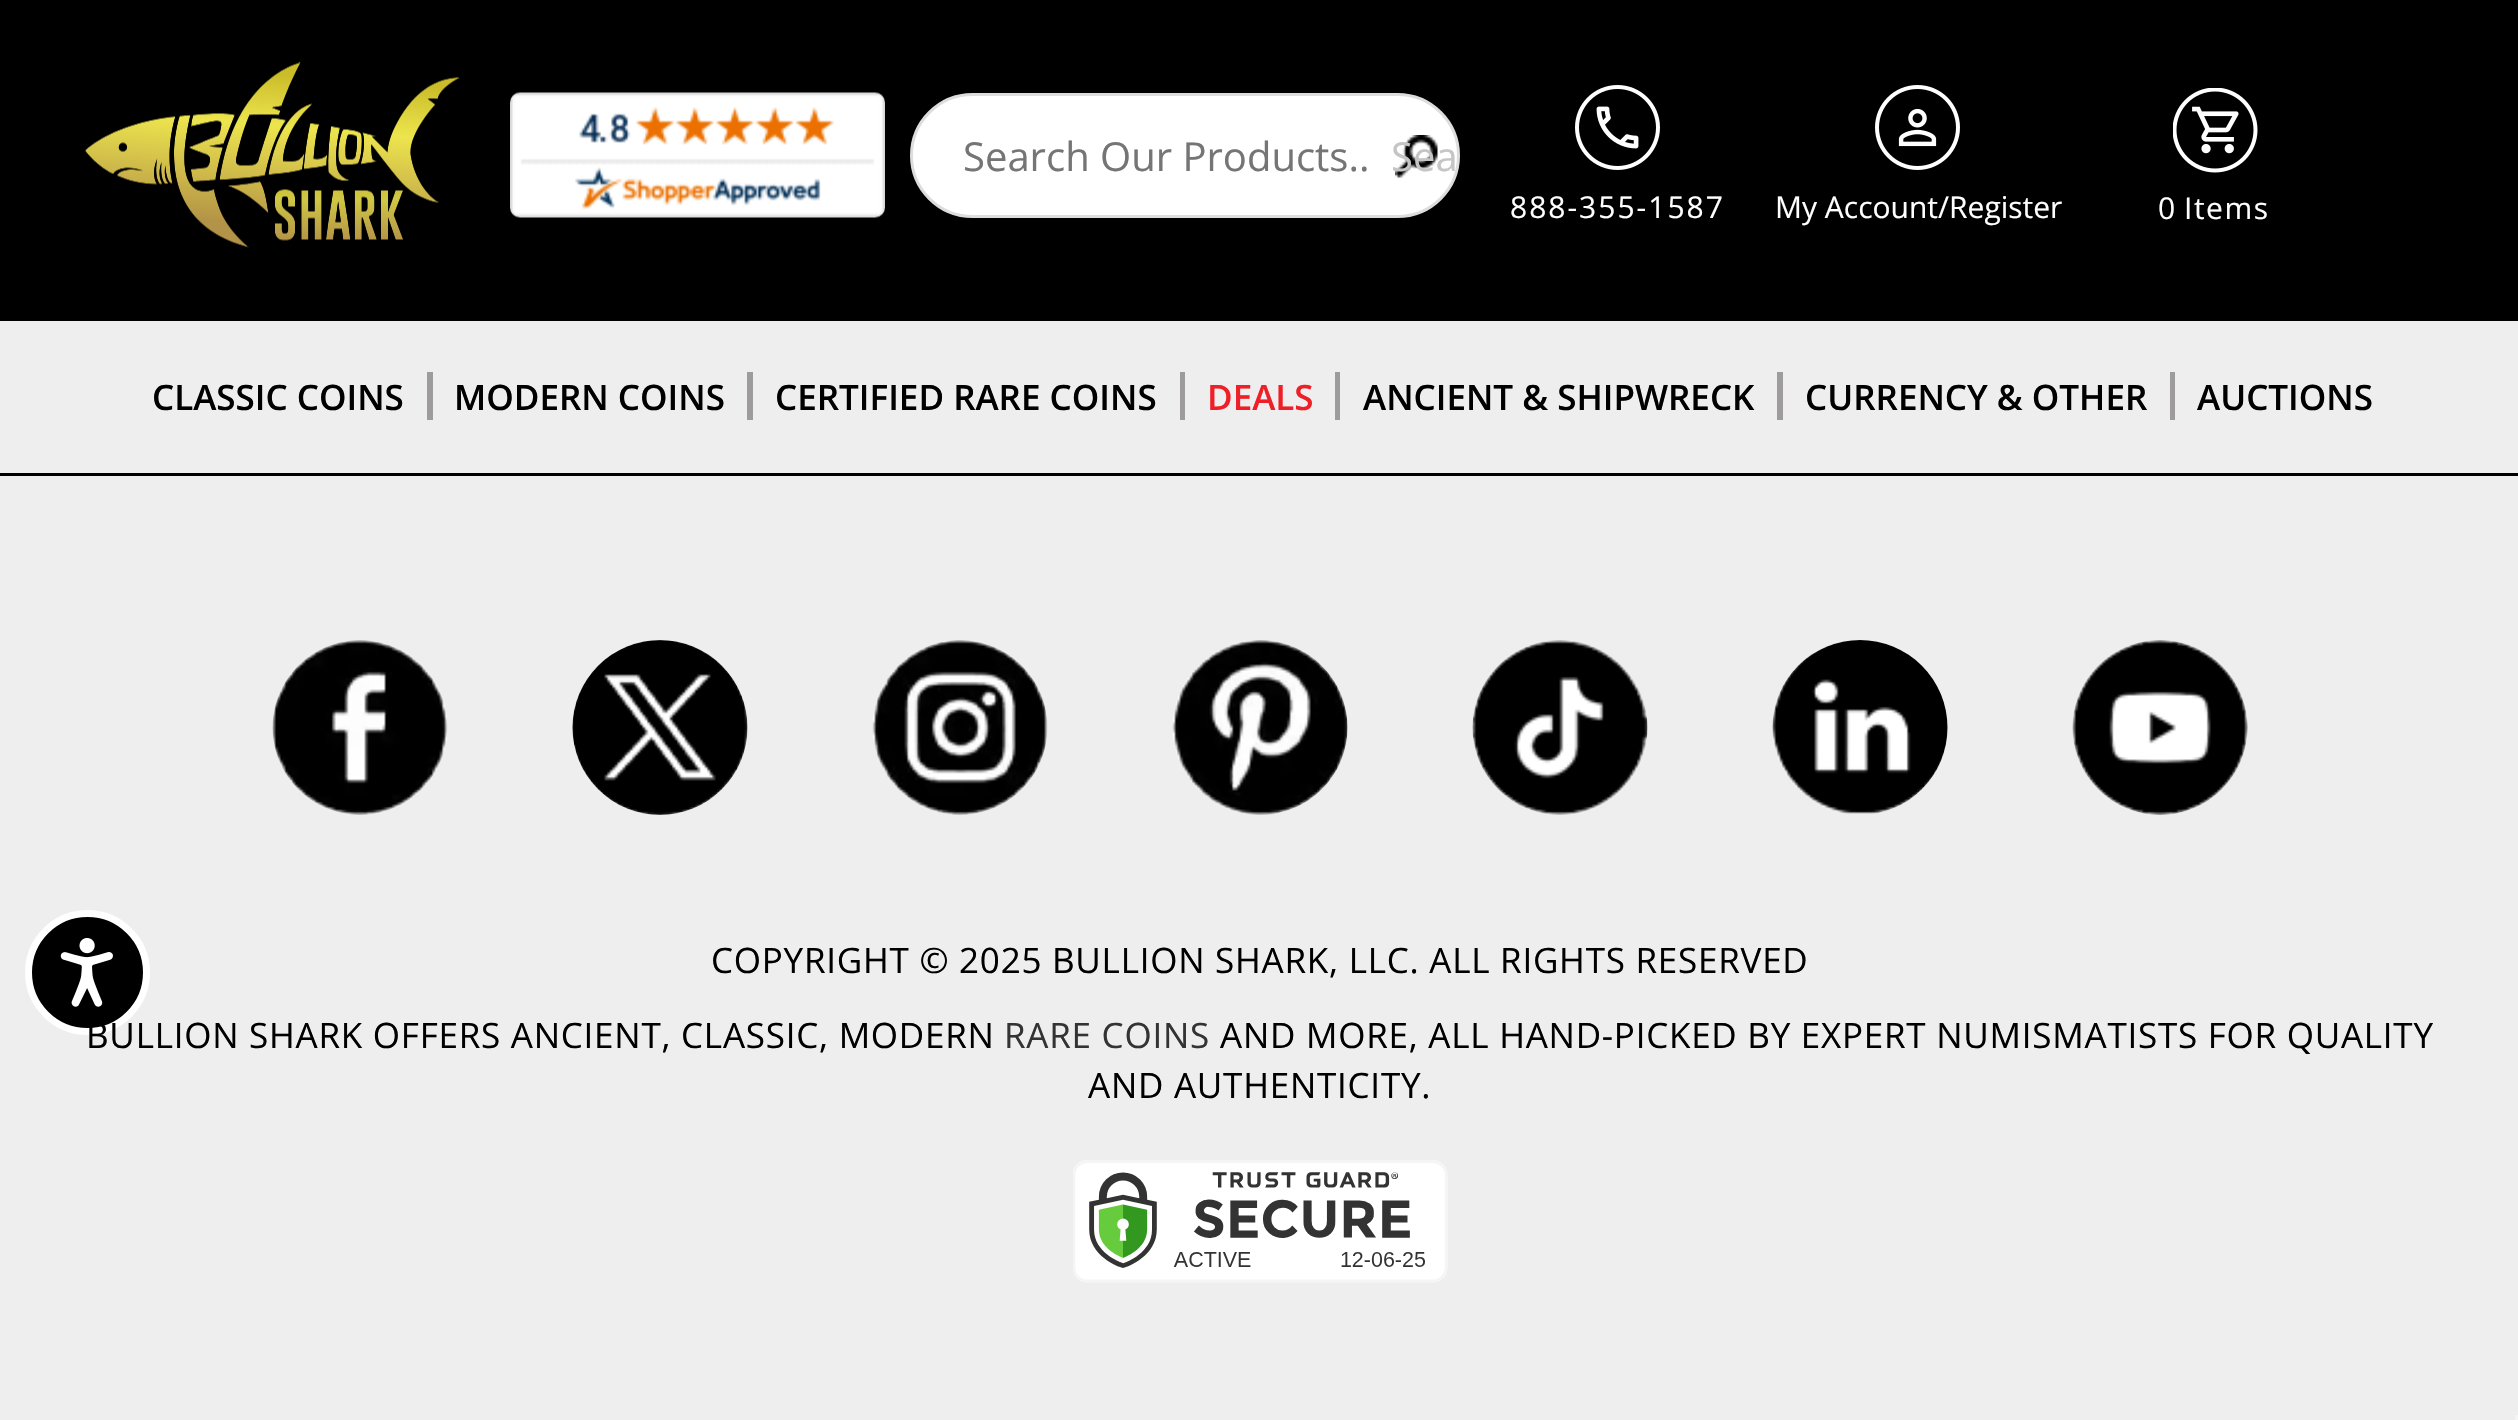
#include "include/core/SkBlurTypes.h"
#include "include/core/SkCanvas.h"
#include "include/core/SkData.h"
#include "include/core/SkFont.h"
#include "include/core/SkFontMgr.h"
#include "include/core/SkImage.h"
#include "include/core/SkMaskFilter.h"
#include "include/core/SkPaint.h"
#include "include/core/SkPathBuilder.h"
#include "include/core/SkTextBlob.h"
#include "include/effects/SkDashPathEffect.h"
#include "include/effects/SkGradientShader.h"
#include "include/utils/SkParsePath.h"

extern sk_sp<SkFontMgr> fontMgr;

void draw(SkCanvas* canvas) {
    SkPaint p;
    p.setAntiAlias(true);
    auto font = [&](const char* family, int weight, float size, bool italic = false) {
        SkFontStyle style(weight, SkFontStyle::kNormal_Width,
            italic ? SkFontStyle::kItalic_Slant : SkFontStyle::kUpright_Slant);
        SkFont result(fontMgr->matchFamilyStyle(family, style), size);
        result.setSubpixel(true);
        return result;
    };
    auto drawTracked = [&](const char* s, float x, float y, const SkFont& font, const SkPaint& ink, float letter, float word) {
        std::vector<SkGlyphID> glyphs(font.countText(s, strlen(s), SkTextEncoding::kUTF8));
        std::vector<float> xs(glyphs.size());
        font.textToGlyphs(s, strlen(s), SkTextEncoding::kUTF8, glyphs);
        font.getXPos(glyphs, xs, x);
        float extra = 0;
        for (size_t i = 0; i < glyphs.size(); i++) {
            xs[i] += extra;
            extra += letter + word * (glyphs[i] == font.unicharToGlyph(' '));
        }
        canvas->drawTextBlob(SkTextBlob::MakeFromPosHGlyphs(glyphs, xs, y, font), 0, 0, ink);
    };
    auto drawPhoto = [&](const char* path, float l, float t, float r, float b) {
        auto image = SkImages::DeferredFromEncodedData(SkData::MakeFromFileName(path));
        canvas->drawImageRect(image, SkRect::MakeLTRB(l, t, r, b), SkSamplingOptions());
    };
    canvas->clear(0xFFEEEEEE);
    p.setColor(0xFF000000);
    canvas->drawCircle(87.5f, 972.5f, 59, p);
    p.setStyle(SkPaint::kStroke_Style);
    p.setStrokeWidth(7);
    p.setColor(0xFFFFFFFF);
    canvas->drawCircle(87.5f, 972.5f, 59, p);
    drawPhoto("media/1.png", 60, 938, 113, 1007);
    p.setStyle(SkPaint::kFill_Style);
    p.setColor(0xFF000000);
    canvas->drawRect(SkRect::MakeLTRB(0, 0, 2518, 321), p);
    canvas->drawRect(SkRect::MakeLTRB(0, 473, 2518, 476), p);
    drawPhoto("media/2.png", 85, 62, 460, 248);
    drawPhoto("media/3.png", 510, 92, 885, 218);
    p.setColor(0xFFFFFFFF);
    canvas->drawRoundRect(SkRect::MakeLTRB(911.5f, 94.5f, 1458.5f, 216.5f), 61, 61, p);
    p.setStyle(SkPaint::kStroke_Style);
    p.setStrokeWidth(3);
    p.setColor(0xFFDDDDDD);
    canvas->drawRoundRect(SkRect::MakeLTRB(911.5f, 94.5f, 1458.5f, 216.5f), 61, 61, p);
    auto font1 = font("Open Sans", 400, 40);
    p.setStyle(SkPaint::kFill_Style);
    p.setColor(0xFF757575);
    canvas->drawString("Search Our Products..", 963, 171, font1, p);
    drawPhoto("media/4.png", 1395, 135, 1438, 178);
    p.setColor(0xFFC5C5C5);
    canvas->drawString("Sea", 1391, 171, font1, p);
    drawPhoto("media/5.png", 1575, 85, 1660, 170);
    auto font2 = font("Open Sans", 400, 30);
    p.setColor(0xFFFFFFFF);
    drawTracked("888-355-1587", 1510, 218, font2, p, 2, 0);
    drawPhoto("media/6.png", 1875, 85, 1960, 170);
    canvas->drawString("My Account/Register", 1775, 218, font2, p);
    drawPhoto("media/7.png", 2173, 88, 2258, 173);
    drawTracked("0", 2158, 219, font2, p, 1.5f, 0);
    drawTracked("Items", 2184, 219, font2, p, 1.5f, 0);
    auto font3 = font("Open Sans", 600, 35);
    p.setColor(0xFF000000);
    canvas->drawString("CLASSIC COINS", 152, 410, font3, p);
    p.setColor(0xFF9D9B9C);
    canvas->drawRect(SkRect::MakeLTRB(427, 372, 433, 420), p);
    p.setColor(0xFF000000);
    canvas->drawString("MODERN COINS", 454, 410, font3, p);
    p.setColor(0xFF9D9B9C);
    canvas->drawRect(SkRect::MakeLTRB(747, 372, 753, 420), p);
    p.setColor(0xFF000000);
    canvas->drawString("CERTIFIED RARE COINS", 775, 410, font3, p);
    p.setColor(0xFF9D9B9C);
    canvas->drawRect(SkRect::MakeLTRB(1180, 372, 1185, 420), p);
    p.setColor(0xFFEE1F27);
    canvas->drawString("DEALS", 1207, 410, font3, p);
    p.setColor(0xFF9D9B9C);
    canvas->drawRect(SkRect::MakeLTRB(1335, 372, 1340, 420), p);
    p.setColor(0xFF000000);
    canvas->drawString("ANCIENT & SHIPWRECK", 1363, 410, font3, p);
    p.setColor(0xFF9D9B9C);
    canvas->drawRect(SkRect::MakeLTRB(1777, 372, 1783, 420), p);
    p.setColor(0xFF000000);
    canvas->drawString("CURRENCY & OTHER", 1805, 410, font3, p);
    p.setColor(0xFF9D9B9C);
    canvas->drawRect(SkRect::MakeLTRB(2170, 372, 2175, 420), p);
    p.setColor(0xFF000000);
    canvas->drawString("AUCTIONS", 2197, 410, font3, p);
    drawPhoto("media/8.png", 272, 640, 448, 815);
    drawPhoto("media/9.png", 572, 640, 748, 815);
    drawPhoto("media/10.png", 872, 640, 1048, 815);
    drawPhoto("media/11.png", 1172, 640, 1348, 815);
    drawPhoto("media/12.png", 1472, 640, 1648, 815);
    drawPhoto("media/13.png", 1772, 640, 1948, 814);
    drawPhoto("media/14.png", 2072, 640, 2248, 815);
    auto font4 = font("Open Sans", 400, 35);
    drawTracked("COPYRIGHT © 2025 BULLION SHARK, LLC. ALL RIGHTS RESERVED", 711, 973, font4, p, 0.75f, 0);
    drawTracked("BULLION SHARK OFFERS ANCIENT, CLASSIC, MODERN", 86, 1048, font4, p, 0.75f, 0);
    p.setColor(0xFF333333);
    drawTracked("RARE COINS", 1004, 1048, font4, p, 0.75f, 0);
    p.setColor(0xFF000000);
    drawTracked("AND MORE, ALL HAND-PICKED BY EXPERT NUMISMATISTS FOR QUALITY", 1220, 1048, font4, p, 0.75f, 0);
    drawTracked("AND AUTHENTICITY.", 1088, 1098, font4, p, 0.75f, 0);
    drawPhoto("media/15.png", 1073, 1160, 1448, 1283);
    p.setColor(0xFFF5F5F5);
    canvas->drawRect(SkRect::MakeLTRB(2515, 1415, 2518, 1420), p);
}
